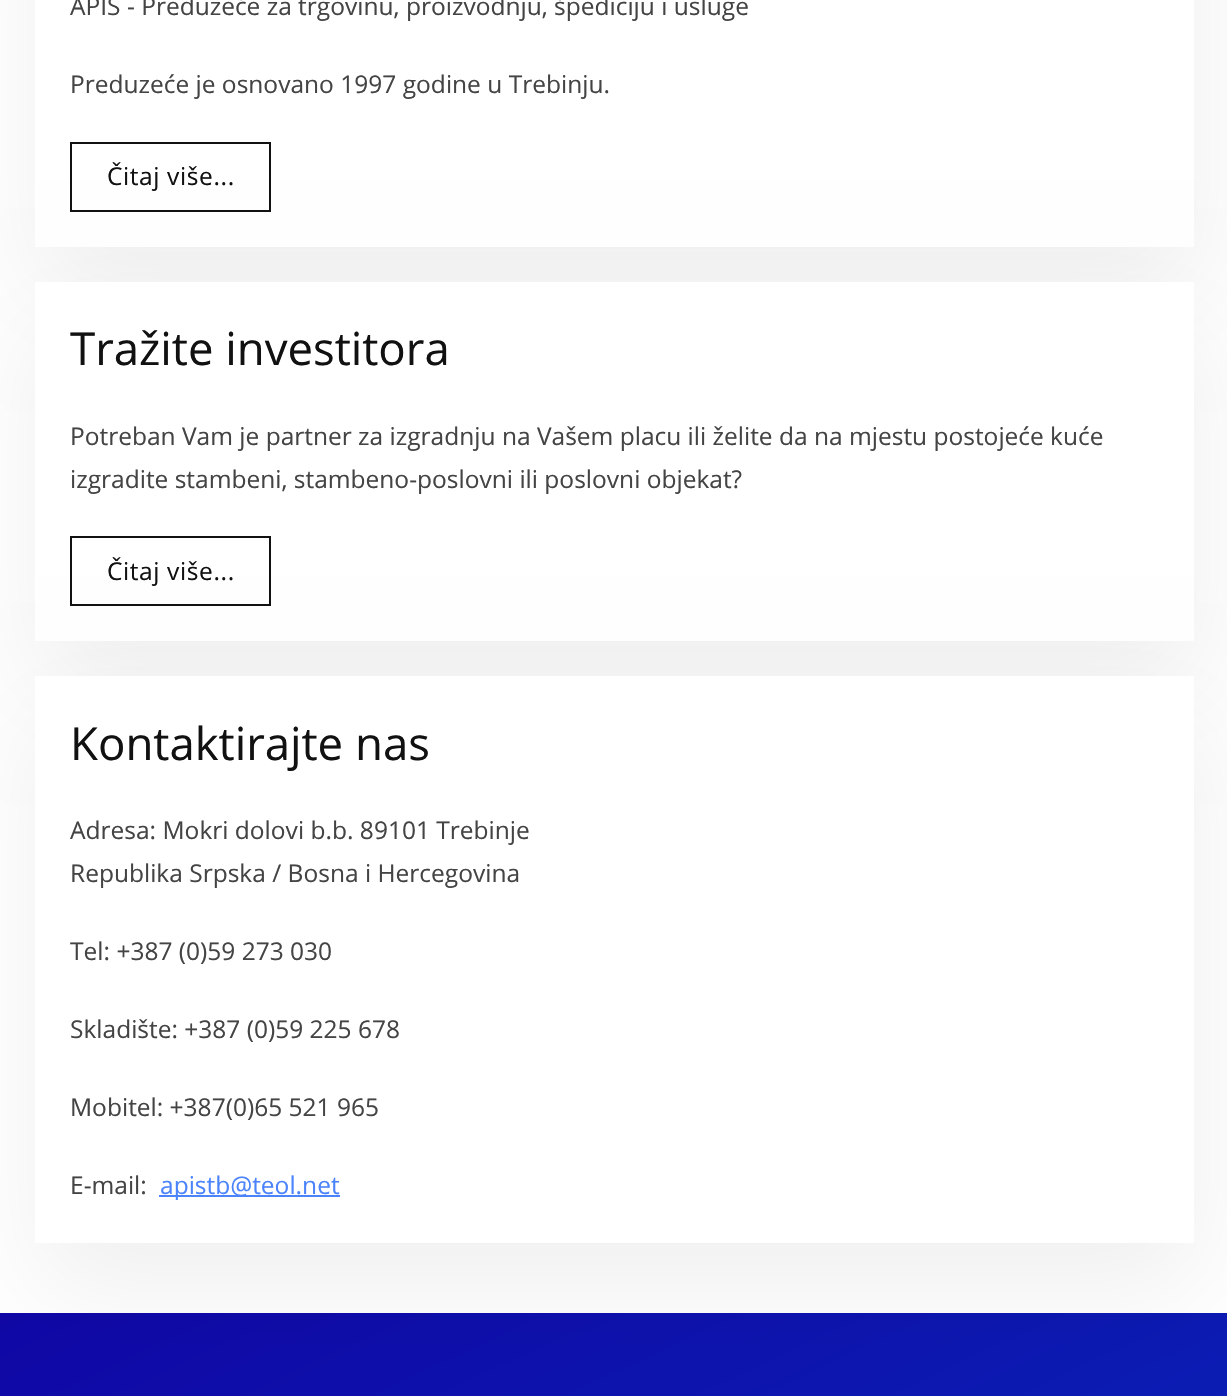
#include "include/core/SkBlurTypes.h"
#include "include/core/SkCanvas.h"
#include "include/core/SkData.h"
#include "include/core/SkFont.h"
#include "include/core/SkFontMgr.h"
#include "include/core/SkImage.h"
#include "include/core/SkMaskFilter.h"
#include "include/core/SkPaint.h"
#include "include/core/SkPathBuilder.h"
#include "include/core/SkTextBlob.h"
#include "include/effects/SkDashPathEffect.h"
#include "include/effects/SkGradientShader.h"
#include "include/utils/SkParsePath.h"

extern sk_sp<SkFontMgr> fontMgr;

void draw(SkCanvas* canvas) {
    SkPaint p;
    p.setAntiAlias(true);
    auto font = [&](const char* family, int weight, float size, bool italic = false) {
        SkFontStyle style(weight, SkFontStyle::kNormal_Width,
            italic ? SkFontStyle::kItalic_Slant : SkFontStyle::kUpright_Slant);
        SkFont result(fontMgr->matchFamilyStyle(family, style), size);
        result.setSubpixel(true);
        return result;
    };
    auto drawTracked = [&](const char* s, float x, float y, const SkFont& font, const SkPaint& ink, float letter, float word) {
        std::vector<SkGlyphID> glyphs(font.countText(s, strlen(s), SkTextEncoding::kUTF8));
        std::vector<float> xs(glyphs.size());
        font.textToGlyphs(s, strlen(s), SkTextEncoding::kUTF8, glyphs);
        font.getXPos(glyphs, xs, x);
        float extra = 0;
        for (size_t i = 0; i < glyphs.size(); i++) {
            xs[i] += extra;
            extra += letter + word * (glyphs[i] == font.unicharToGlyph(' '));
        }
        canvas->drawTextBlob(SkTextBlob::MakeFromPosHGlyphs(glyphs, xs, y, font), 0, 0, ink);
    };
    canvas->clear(0xFFFFFFFF);
    p.setColor(0x0F000000);
    p.setMaskFilter(SkMaskFilter::MakeBlur(kNormal_SkBlurStyle, 49));
    canvas->drawRect(SkRect::MakeLTRB(39, -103, 1197, 292), p);
    p.setMaskFilter(nullptr);
    p.setColor(0xFFFFFFFF);
    canvas->drawRect(SkRect::MakeLTRB(35, 0, 1194, 247), p);
    auto font1 = font("Open Sans", 400, 24.5f);
    p.setColor(0xFF444444);
    canvas->drawString("APIS - Preduzeće za trgovinu, proizvodnju, špediciju i usluge", 70, 15, font1, p);
    canvas->drawString("Preduzeće je osnovano 1997 godine u Trebinju.", 70, 93, font1, p);
    p.setStyle(SkPaint::kStroke_Style);
    p.setStrokeWidth(2);
    p.setColor(0xFF111111);
    canvas->drawRect(SkRect::MakeLTRB(71, 143, 270, 211), p);
    p.setStyle(SkPaint::kFill_Style);
    drawTracked("Čitaj više...", 107, 185, font1, p, 0.6f, 0);
    p.setColor(0x0F000000);
    p.setMaskFilter(SkMaskFilter::MakeBlur(kNormal_SkBlurStyle, 49));
    canvas->drawRect(SkRect::MakeLTRB(39, 327, 1197, 686), p);
    p.setMaskFilter(nullptr);
    p.setColor(0xFFFFFFFF);
    canvas->drawRect(SkRect::MakeLTRB(35, 282, 1194, 641), p);
    auto font2 = font("Open Sans", 400, 45.5f);
    p.setColor(0xFF111111);
    canvas->drawString("Tražite investitora", 70, 365, font2, p);
    p.setColor(0xFF444444);
    canvas->drawString("Potreban Vam je partner za izgradnju na Vašem placu ili želite da na mjestu postojeće kuće", 70, 445, font1, p);
    canvas->drawString("izgradite stambeni, stambeno-poslovni ili poslovni objekat?", 70, 488, font1, p);
    p.setStyle(SkPaint::kStroke_Style);
    p.setColor(0xFF111111);
    canvas->drawRect(SkRect::MakeLTRB(71, 537, 270, 605), p);
    p.setStyle(SkPaint::kFill_Style);
    drawTracked("Čitaj više...", 107, 580, font1, p, 0.6f, 0);
    {
        const SkColor colors[] = {0xFF1007A6, 0xFF082BBE};
        const float stops[] = {0, 1};
        const SkPoint ends[] = {{406, 1123}, {822, 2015}};
        p.setShader(SkGradientShader::MakeLinear(ends, colors, stops, 2, SkTileMode::kClamp));
        p.setAlpha(255);
    }
    canvas->drawRect(SkRect::MakeLTRB(0, 1313, 1227, 1396), p);
    p.setShader(nullptr);
    p.setColor(0x0F000000);
    p.setMaskFilter(SkMaskFilter::MakeBlur(kNormal_SkBlurStyle, 49));
    canvas->drawRect(SkRect::MakeLTRB(39, 721, 1197, 1288), p);
    p.setMaskFilter(nullptr);
    p.setColor(0xFFFFFFFF);
    canvas->drawRect(SkRect::MakeLTRB(35, 676, 1194, 1243), p);
    p.setColor(0xFF111111);
    canvas->drawString("Kontaktirajte nas", 70, 760, font2, p);
    p.setColor(0xFF444444);
    {
        const struct { const char* s; float x, y; } items[] = {
            {"Adresa: Mokri dolovi b.b. 89101 Trebinje", 70, 839},
            {"Republika Srpska / Bosna i Hercegovina", 70, 882},
            {"Tel: +387 (0)59 273 030", 70, 960},
            {"Skladište: +387 (0)59 225 678", 70, 1038},
            {"Mobitel: +387(0)65 521 965", 70, 1116},
            {"E-mail:", 70, 1194},
        };
        for (auto [s, x, y] : items) {
            canvas->drawString(s, x, y, font1, p);
        }
    }
    p.setColor(0xFF4A83FB);
    canvas->drawRect(SkRect::MakeLTRB(159, 1195, 340, 1197), p);
    canvas->drawString("apistb@teol.net", 160, 1194, font1, p);
}
